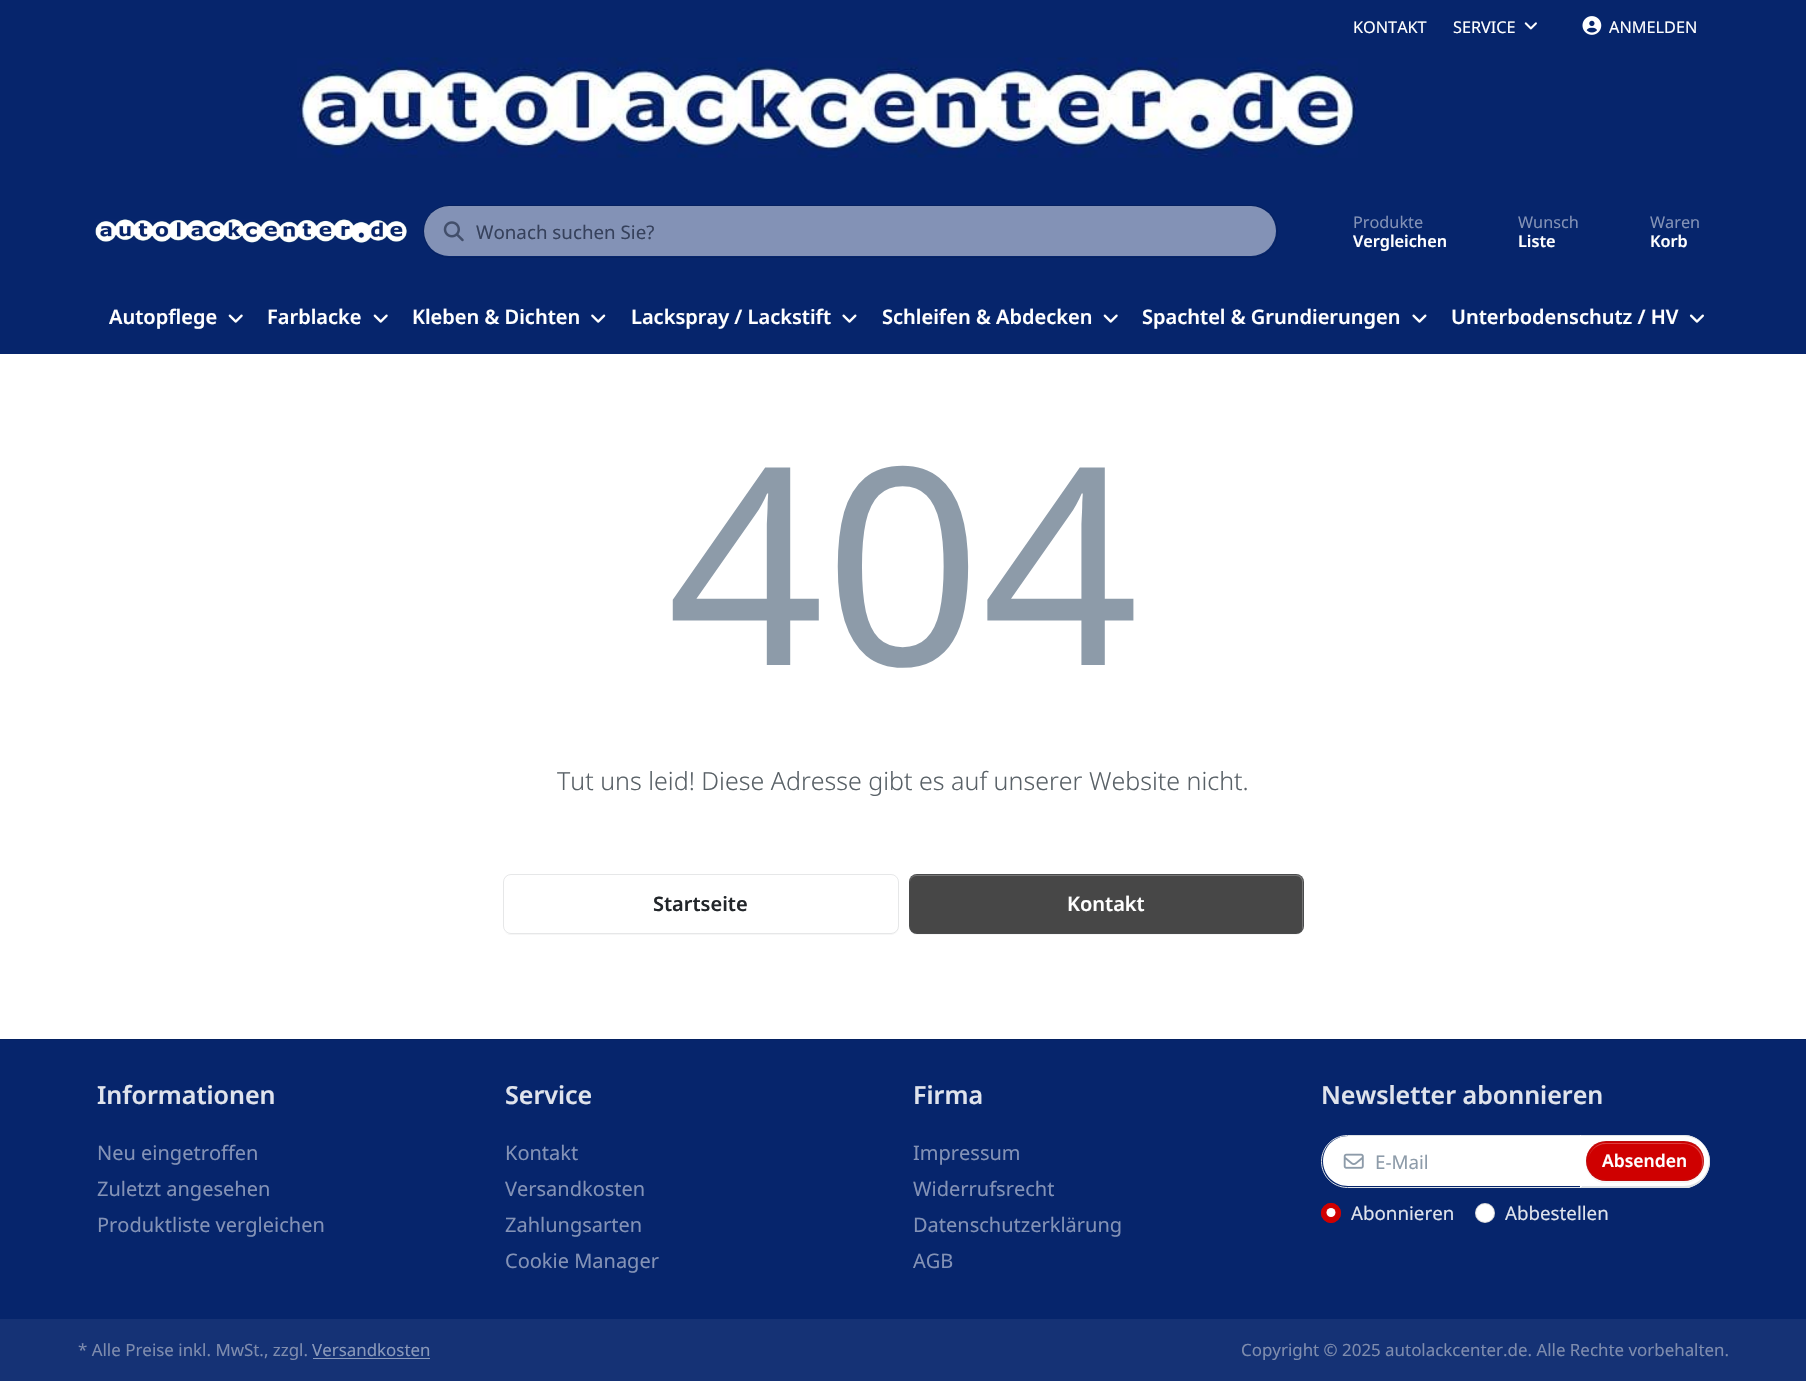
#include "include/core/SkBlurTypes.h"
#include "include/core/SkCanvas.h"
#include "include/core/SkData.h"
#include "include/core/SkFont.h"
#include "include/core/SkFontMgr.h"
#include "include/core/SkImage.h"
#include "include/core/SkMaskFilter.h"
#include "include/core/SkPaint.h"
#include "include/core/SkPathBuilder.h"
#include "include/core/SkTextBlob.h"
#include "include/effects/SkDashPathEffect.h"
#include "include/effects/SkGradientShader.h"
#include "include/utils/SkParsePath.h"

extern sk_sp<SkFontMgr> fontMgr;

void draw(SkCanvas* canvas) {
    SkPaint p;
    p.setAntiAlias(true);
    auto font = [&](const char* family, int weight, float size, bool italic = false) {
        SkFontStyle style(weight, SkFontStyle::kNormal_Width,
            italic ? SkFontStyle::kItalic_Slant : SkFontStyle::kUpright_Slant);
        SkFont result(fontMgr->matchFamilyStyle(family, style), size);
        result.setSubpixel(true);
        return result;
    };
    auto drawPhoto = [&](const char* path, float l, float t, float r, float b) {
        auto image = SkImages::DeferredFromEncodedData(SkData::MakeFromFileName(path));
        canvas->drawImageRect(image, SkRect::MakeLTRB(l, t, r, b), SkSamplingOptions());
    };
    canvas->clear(0xFFFFFFFF);
    p.setColor(0xFF06256C);
    canvas->drawRect(SkRect::MakeLTRB(0, 0, 1806, 354), p);
    auto font1 = font("Noto Sans", 400, 16.25f);
    p.setColor(0xFFFFFFFF);
    canvas->drawString("KONTAKT", 1353, 33, font1, p);
    canvas->drawString("SERVICE", 1453, 33, font1, p);
    drawPhoto("media/1.png", 1524, 22, 1537, 30);
    drawPhoto("media/2.png", 1582, 16, 1602, 35);
    canvas->drawString("ANMELDEN", 1609, 33, font1, p);
    drawPhoto("media/3.png", 297, 57, 1358, 158);
    drawPhoto("media/4.png", 95, 219, 407, 243);
    p.setColor(0xFF8392B6);
    canvas->drawRoundRect(SkRect::MakeLTRB(424, 206, 1276, 256), 25, 25, p);
    p.setStyle(SkPaint::kStroke_Style);
    p.setStrokeWidth(1);
    p.setColor(0x1F000000);
    canvas->drawRoundRect(SkRect::MakeLTRB(423.5f, 205.5f, 1277.5f, 257.5f), 26, 26, p);
    drawPhoto("media/5.png", 443, 221, 464, 242);
    auto font2 = font("Noto Sans", 400, 18.75f);
    p.setStyle(SkPaint::kFill_Style);
    p.setColor(0xFF36415C);
    canvas->drawString("Wonach suchen Sie?", 476, 239, font2, p);
    p.setColor(0xFF8392B6);
    canvas->drawString("Produkte", 1353, 228, font1, p);
    auto font3 = font("Noto Sans", 600, 16.25f);
    p.setColor(0xFFFFFFFF);
    canvas->drawString("Vergleichen", 1353, 247, font3, p);
    p.setColor(0xFF8392B6);
    canvas->drawString("Wunsch", 1518, 228, font1, p);
    p.setColor(0xFFFFFFFF);
    canvas->drawString("Liste", 1518, 247, font3, p);
    p.setColor(0xFF8392B6);
    canvas->drawString("Waren", 1650, 228, font1, p);
    p.setColor(0xFFFFFFFF);
    canvas->drawString("Korb", 1650, 247, font3, p);
    auto font4 = font("Noto Sans", 600, 20);
    canvas->drawString("Autopflege", 109, 324, font4, p);
    drawPhoto("media/6.png", 228, 314, 243, 323);
    canvas->drawString("Farblacke", 267, 324, font4, p);
    drawPhoto("media/6.png", 373, 314, 388, 323);
    canvas->drawString("Kleben & Dichten", 412, 324, font4, p);
    drawPhoto("media/7.png", 591, 314, 606, 323);
    canvas->drawString("Lackspray / Lackstift", 631, 324, font4, p);
    drawPhoto("media/8.png", 842, 314, 857, 323);
    canvas->drawString("Schleifen & Abdecken", 882, 324, font4, p);
    drawPhoto("media/6.png", 1103, 314, 1118, 323);
    canvas->drawString("Spachtel & Grundierungen", 1142, 324, font4, p);
    drawPhoto("media/8.png", 1412, 314, 1427, 323);
    canvas->drawString("Unterbodenschutz / HV", 1451, 324, font4, p);
    drawPhoto("media/9.png", 1689, 314, 1704, 323);
    auto font5 = font("Noto Sans", 400, 275);
    p.setColor(0xFF8D9BA9);
    canvas->drawString("404", 667, 665, font5, p);
    auto font6 = font("Noto Sans", 300, 25);
    p.setColor(0xFF596167);
    canvas->drawString("Tut uns leid! Diese Adresse gibt es auf unserer Website nicht.", 557, 790, font6, p);
    p.setColor(0xFFF6F6F6);
    canvas->drawPath(SkPathBuilder().moveTo(504, 930).cubicTo(505, 933, 508, 935, 511, 935).lineTo(891, 935).cubicTo(895, 935, 899, 931, 899, 927).lineTo(899, 881).lineTo(899, 926).cubicTo(899, 930, 895, 934, 891, 934).lineTo(510, 934).cubicTo(507, 934, 505, 932, 504, 930).close().detach(), p);
    p.setColor(0xFFFFFFFF);
    canvas->drawRoundRect(SkRect::MakeLTRB(503, 874, 899, 934), 8, 8, p);
    p.setStyle(SkPaint::kStroke_Style);
    p.setColor(0x26596167);
    canvas->drawRoundRect(SkRect::MakeLTRB(503.5f, 874.5f, 898.5f, 933.5f), 7.5f, 7.5f, p);
    p.setStyle(SkPaint::kFill_Style);
    p.setColor(0xFF22262A);
    canvas->drawString("Startseite", 653, 911, font4, p);
    p.setColor(0xFFF6F6F6);
    canvas->drawPath(SkPathBuilder().moveTo(909, 929).cubicTo(910, 932, 913, 935, 917, 935).lineTo(1296, 935).cubicTo(1300, 935, 1304, 931, 1304, 927).lineTo(1304, 881).lineTo(1304, 926).cubicTo(1304, 930, 1300, 934, 1296, 934).lineTo(916, 934).cubicTo(913, 934, 910, 932, 909, 929).close().detach(), p);
    p.setColor(0xB8000000);
    canvas->drawRoundRect(SkRect::MakeLTRB(909, 874, 1304, 934), 8, 8, p);
    p.setColor(0xFF757575);
    canvas->drawPath(SkPathBuilder().moveTo(916, 876).lineTo(1296, 876).cubicTo(1300, 876, 1302, 879, 1302, 882).lineTo(1302, 928).cubicTo(1302, 929, 1302, 930, 1301, 931).cubicTo(1302, 930, 1303, 929, 1303, 927).lineTo(1303, 881).cubicTo(1303, 878, 1300, 875, 1297, 875).lineTo(916, 875).cubicTo(913, 875, 910, 878, 910, 881).lineTo(910, 882).cubicTo(910, 879, 913, 876, 916, 876).close().detach(), p);
    p.setStyle(SkPaint::kStroke_Style);
    p.setColor(0x26596167);
    canvas->drawRoundRect(SkRect::MakeLTRB(909.5f, 874.5f, 1303.5f, 933.5f), 7.5f, 7.5f, p);
    p.setStyle(SkPaint::kFill_Style);
    p.setColor(0xFFFFFFFF);
    canvas->drawString("Kontakt", 1067, 911, font4, p);
    p.setColor(0xFF06256C);
    canvas->drawRect(SkRect::MakeLTRB(0, 1040, 1806, 1319), p);
    p.setColor(0xFF052161);
    canvas->drawRect(SkRect::MakeLTRB(0, 1039, 1806, 1040), p);
    auto font7 = font("Noto Sans", 600, 25);
    p.setColor(0xFFDFE3EC);
    canvas->drawString("Informationen", 97, 1104, font7, p);
    auto font8 = font("Noto Sans", 400, 20);
    p.setColor(0xFF8392B6);
    {
        const struct { const char* s; float x, y; } items[] = {
            {"Neu eingetroffen", 97, 1160},
            {"Zuletzt angesehen", 97, 1196},
            {"Produktliste vergleichen", 97, 1232},
        };
        for (auto [s, x, y] : items) {
            canvas->drawString(s, x, y, font8, p);
        }
    }
    p.setColor(0xFFDFE3EC);
    canvas->drawString("Service", 505, 1104, font7, p);
    p.setColor(0xFF8392B6);
    {
        const struct { const char* s; float x, y; } items[] = {
            {"Kontakt", 505, 1160},
            {"Versandkosten", 505, 1196},
            {"Zahlungsarten", 505, 1232},
            {"Cookie Manager", 505, 1268},
        };
        for (auto [s, x, y] : items) {
            canvas->drawString(s, x, y, font8, p);
        }
    }
    p.setColor(0xFFDFE3EC);
    canvas->drawString("Firma", 913, 1104, font7, p);
    p.setColor(0xFF8392B6);
    {
        const struct { const char* s; float x, y; } items[] = {
            {"Impressum", 913, 1160},
            {"Widerrufsrecht", 913, 1196},
            {"Datenschutzerklärung", 913, 1232},
            {"AGB", 913, 1268},
        };
        for (auto [s, x, y] : items) {
            canvas->drawString(s, x, y, font8, p);
        }
    }
    p.setColor(0xFFDFE3EC);
    canvas->drawString("Newsletter abonnieren", 1321, 1104, font7, p);
    p.setColor(0xFFFFFFFF);
    canvas->drawPath(SkPathBuilder().moveTo(1348, 1136).lineTo(1580, 1136).lineTo(1580, 1186).lineTo(1348, 1186).cubicTo(1334, 1186, 1323, 1175, 1323, 1161).cubicTo(1323, 1147, 1334, 1136, 1348, 1136).close().detach(), p);
    p.setStyle(SkPaint::kStroke_Style);
    p.setColor(0xFFDEE2E6);
    canvas->drawPath(SkPathBuilder().moveTo(1347.5f, 1135.5f).lineTo(1580.5f, 1135.5f).lineTo(1580.5f, 1187.5f).lineTo(1347.5f, 1187.5f).cubicTo(1333, 1187.5f, 1321.5f, 1176, 1321.5f, 1161.5f).cubicTo(1321.5f, 1147, 1333, 1135.5f, 1347.5f, 1135.5f).close().detach(), p);
    drawPhoto("media/10.png", 1343, 1153, 1364, 1169);
    p.setStyle(SkPaint::kFill_Style);
    p.setColor(0xFF8D9BA9);
    canvas->drawString("E-Mail", 1375, 1169, font2, p);
    p.setColor(0xFFFFFFFF);
    canvas->drawPath(SkPathBuilder().moveTo(1580, 1135).lineTo(1683.5f, 1135).cubicTo(1698, 1135, 1710, 1147, 1710, 1161.5f).cubicTo(1710, 1176, 1698, 1188, 1683.5f, 1188).lineTo(1580, 1188).close().detach(), p);
    p.setColor(0xFFDEE2E6);
    canvas->drawPath(SkPathBuilder().moveTo(1580, 1135).lineTo(1581, 1136).lineTo(1684, 1136).cubicTo(1691, 1136, 1697, 1139, 1702, 1143).cubicTo(1698, 1138, 1691, 1135, 1684, 1135).close().detach(), p);
    canvas->drawPath(SkPathBuilder().moveTo(1702, 1143).cubicTo(1712.5f, 1153, 1712.5f, 1169.5f, 1702.5f, 1180).lineTo(1701.5f, 1179).cubicTo(1711.5f, 1169.5f, 1711.5f, 1153, 1702, 1143).close().detach(), p);
    canvas->drawPath(SkPathBuilder().moveTo(1689, 1188).lineTo(1580, 1188).lineTo(1582, 1186).lineTo(1684, 1186).cubicTo(1691, 1186, 1697, 1183, 1701, 1179).lineTo(1702, 1180).cubicTo(1699, 1184, 1694, 1186, 1689, 1188).close().detach(), p);
    p.setColor(0xFFFFFFFF);
    canvas->drawPath(SkPathBuilder().moveTo(1580, 1135).lineTo(1580, 1188).lineTo(1582, 1186).lineTo(1581, 1186).lineTo(1581, 1136).close().detach(), p);
    p.setColor(0xFFF6F6F6);
    canvas->drawPath(SkPathBuilder().moveTo(1586, 1159).cubicTo(1584, 1170, 1591, 1180, 1602, 1183).lineTo(1619, 1183).lineTo(1688, 1183).cubicTo(1699, 1180, 1706, 1170, 1704, 1159).cubicTo(1705, 1169, 1698, 1179, 1688, 1181).lineTo(1671, 1181).lineTo(1602, 1181).cubicTo(1592, 1179, 1585, 1169, 1586, 1159).close().detach(), p);
    p.setColor(0xFFCF0000);
    canvas->drawRoundRect(SkRect::MakeLTRB(1586, 1141, 1704, 1181), 20, 20, p);
    p.setColor(0xFFDB4040);
    canvas->drawPath(SkPathBuilder().moveTo(1606, 1144).lineTo(1684, 1144).cubicTo(1694, 1144, 1702, 1152, 1702, 1162).cubicTo(1702, 1167, 1701, 1171, 1698, 1174).cubicTo(1702, 1170, 1704, 1164, 1703, 1158).cubicTo(1699, 1142, 1684, 1143, 1672, 1143).lineTo(1603, 1143).cubicTo(1594, 1145, 1588, 1153, 1588, 1162).cubicTo(1588, 1152, 1596, 1144, 1606, 1144).close().detach(), p);
    p.setStyle(SkPaint::kStroke_Style);
    p.setColor(0x26596167);
    canvas->drawRoundRect(SkRect::MakeLTRB(1586.5f, 1141.5f, 1703.5f, 1180.5f), 19.5f, 19.5f, p);
    auto font9 = font("Noto Sans", 600, 17.5f);
    p.setStyle(SkPaint::kFill_Style);
    p.setColor(0xFFFFFFFF);
    canvas->drawString("Absenden", 1602, 1167, font9, p);
    p.setColor(0xFFCF0000);
    canvas->drawCircle(1331, 1213, 10, p);
    p.setColor(0xFFFFFFFF);
    canvas->drawCircle(1331, 1212.5f, 4.5f, p);
    p.setStyle(SkPaint::kStroke_Style);
    p.setColor(0xFFCF0000);
    canvas->drawCircle(1331, 1213, 9.5f, p);
    p.setStyle(SkPaint::kFill_Style);
    p.setColor(0xFFDFE3EC);
    canvas->drawString("Abonnieren", 1351, 1220, font2, p);
    p.setColor(0xFFFFFFFF);
    canvas->drawCircle(1485, 1213, 10, p);
    p.setStyle(SkPaint::kStroke_Style);
    p.setColor(0x26000000);
    canvas->drawCircle(1485, 1213, 9.5f, p);
    p.setStyle(SkPaint::kFill_Style);
    p.setColor(0xFFDFE3EC);
    canvas->drawString("Abbestellen", 1505, 1220, font2, p);
    p.setColor(0xFF153275);
    canvas->drawRect(SkRect::MakeLTRB(0, 1319, 1806, 1381), p);
    auto font10 = font("Noto Sans", 400, 16.9f);
    p.setColor(0xFF7E8CAE);
    canvas->drawString("* Alle Preise inkl. MwSt., zzgl.", 78, 1356, font10, p);
    p.setColor(0xFF8A99BA);
    canvas->drawString("Versandkosten", 312, 1356, font10, p);
    canvas->drawRect(SkRect::MakeLTRB(313, 1358, 430, 1359), p);
    p.setColor(0xFF7E8CAE);
    canvas->drawString("Copyright © 2025 autolackcenter.de. Alle Rechte vorbehalten.", 1241, 1356, font10, p);
}
